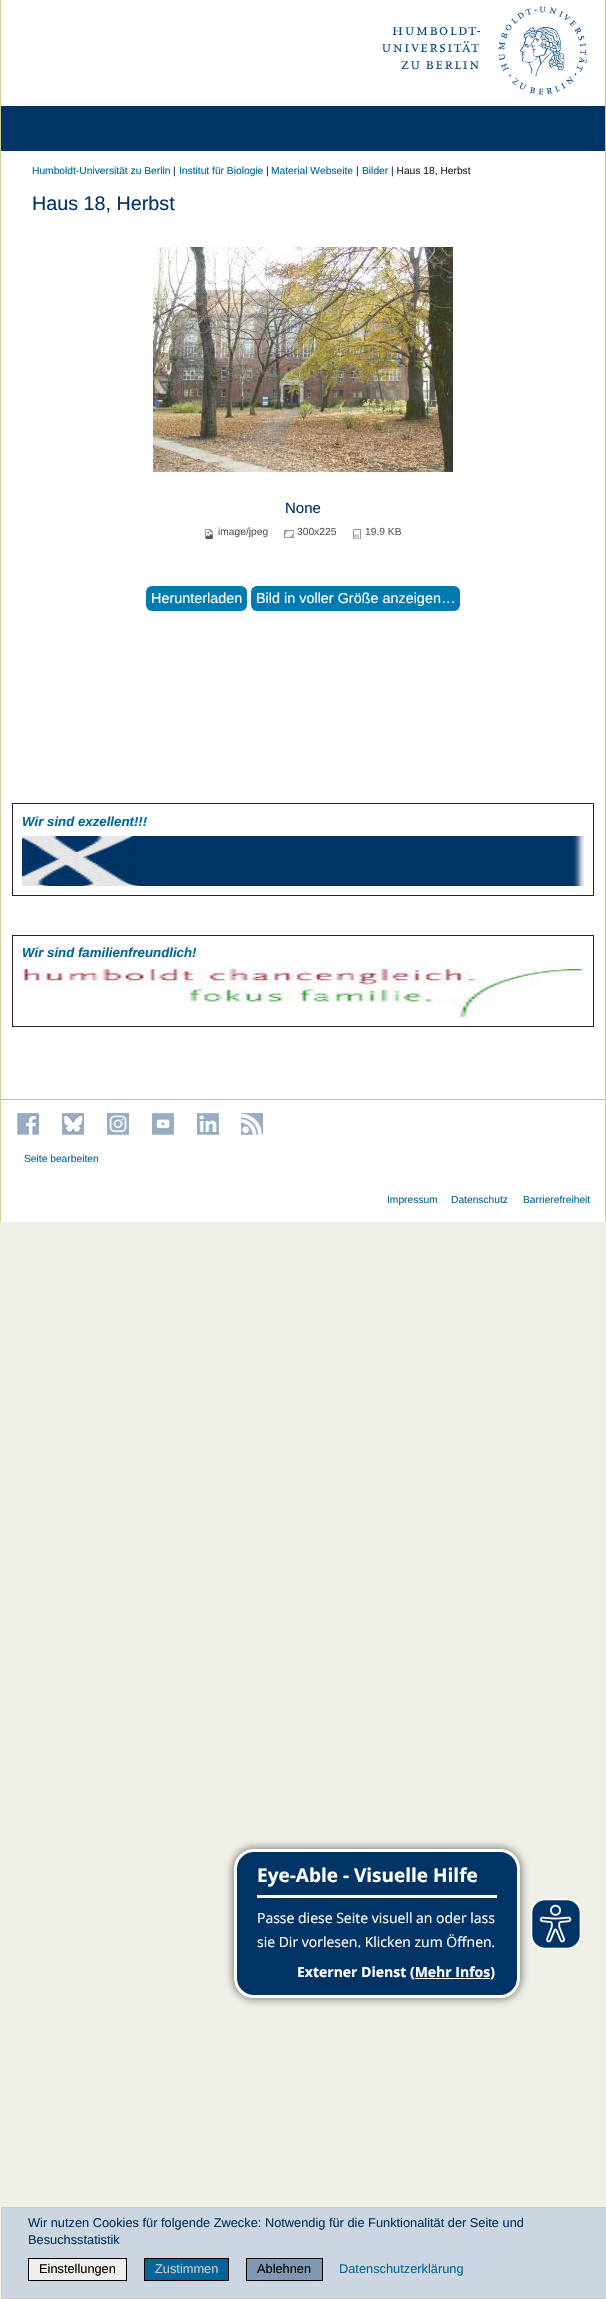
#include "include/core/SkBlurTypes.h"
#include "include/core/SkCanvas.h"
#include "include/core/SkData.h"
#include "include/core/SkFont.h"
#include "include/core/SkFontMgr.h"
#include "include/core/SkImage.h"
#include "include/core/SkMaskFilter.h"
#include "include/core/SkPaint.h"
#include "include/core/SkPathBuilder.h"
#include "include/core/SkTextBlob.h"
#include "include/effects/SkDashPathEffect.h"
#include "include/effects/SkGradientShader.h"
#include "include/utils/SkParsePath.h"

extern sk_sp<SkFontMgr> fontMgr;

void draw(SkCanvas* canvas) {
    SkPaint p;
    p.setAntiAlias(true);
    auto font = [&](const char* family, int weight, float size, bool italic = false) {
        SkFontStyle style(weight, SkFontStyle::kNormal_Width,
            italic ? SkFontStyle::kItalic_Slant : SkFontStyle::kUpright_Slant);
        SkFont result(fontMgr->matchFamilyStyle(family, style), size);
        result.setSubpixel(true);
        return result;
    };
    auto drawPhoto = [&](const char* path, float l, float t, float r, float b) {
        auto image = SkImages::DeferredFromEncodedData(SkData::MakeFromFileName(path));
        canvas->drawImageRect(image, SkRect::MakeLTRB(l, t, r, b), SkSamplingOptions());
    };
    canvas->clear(0xFFF0F0E8);
    p.setColor(0xFFFFFFFF);
    canvas->drawRect(SkRect::MakeLTRB(1, 0, 605, 1222), p);
    drawPhoto("media/1.png", 382, 6, 587, 95);
    {
        const struct { float l, t, r, b; SkColor color; } items[] = {
            {1, 106, 605, 151, 0xFF003366},
            {605, 0, 606, 1222, 0xFFCCCC99},
            {0, 0, 1, 1222, 0xFFCCCC99},
        };
        for (auto [l, t, r, b, color] : items) {
            p.setColor(color);
            canvas->drawRect(SkRect::MakeLTRB(l, t, r, b), p);
        }
    }
    auto font1 = font("Liberation Sans", 400, 10.25f);
    p.setColor(0xFF006699);
    canvas->drawString("Humboldt-Universität zu Berlin", 32, 174, font1, p);
    p.setColor(0xFF212529);
    canvas->drawString("|", 173, 174, font1, p);
    p.setColor(0xFF006699);
    canvas->drawString("Institut für Biologie", 179, 174, font1, p);
    p.setColor(0xFF212529);
    canvas->drawString("|", 266, 174, font1, p);
    p.setColor(0xFF006699);
    canvas->drawString("Material Webseite", 271, 174, font1, p);
    p.setColor(0xFF212529);
    canvas->drawString("|", 356, 174, font1, p);
    p.setColor(0xFF006699);
    canvas->drawString("Bilder", 362, 174, font1, p);
    p.setColor(0xFF212529);
    canvas->drawString("| Haus 18, Herbst", 391, 174, font1, p);
    auto font2 = font("Liberation Sans", 400, 19.75f);
    p.setColor(0xFF003366);
    canvas->drawString("Haus 18, Herbst", 32, 210, font2, p);
    drawPhoto("media/2.png", 153, 247, 453, 472);
    auto font3 = font("Liberation Sans", 400, 15);
    canvas->drawString("None", 285, 513, font3, p);
    drawPhoto("media/3.png", 205, 529, 213, 539);
    p.setColor(0xFF595C5F);
    canvas->drawString("image/jpeg", 218, 535, font1, p);
    drawPhoto("media/4.png", 284, 530, 294, 538);
    canvas->drawString("300x225", 297, 535, font1, p);
    drawPhoto("media/5.png", 353, 529, 361, 539);
    canvas->drawString("19.9 KB", 365, 535, font1, p);
    p.setColor(0xFF007BB1);
    canvas->drawRoundRect(SkRect::MakeLTRB(146, 586, 247, 611), 6, 6, p);
    auto font4 = font("Liberation Sans", 400, 14.4f);
    p.setColor(0xFFFFFFFF);
    canvas->drawString("Herunterladen", 151, 603, font4, p);
    p.setColor(0xFF007BB1);
    canvas->drawRoundRect(SkRect::MakeLTRB(251, 586, 460, 611), 6, 6, p);
    p.setColor(0xFFFFFFFF);
    canvas->drawString("Bild in voller Größe anzeigen…", 256, 603, font4, p);
    p.setStyle(SkPaint::kStroke_Style);
    p.setStrokeWidth(1);
    p.setColor(0xFF212529);
    canvas->drawRect(SkRect::MakeLTRB(12.5f, 803.5f, 593.5f, 895.5f), p);
    auto font5 = font("Liberation Sans", 700, 13.25f, true);
    p.setStyle(SkPaint::kFill_Style);
    p.setColor(0xFF006699);
    canvas->drawString("Wir sind exzellent!!!", 22, 826, font5, p);
    drawPhoto("media/6.png", 22, 836, 584, 886);
    p.setStyle(SkPaint::kStroke_Style);
    p.setColor(0xFF212529);
    canvas->drawRect(SkRect::MakeLTRB(12.5f, 935.5f, 593.5f, 1026.5f), p);
    p.setStyle(SkPaint::kFill_Style);
    p.setColor(0xFF006699);
    canvas->drawString("Wir sind familienfreundlich!", 22, 957, font5, p);
    drawPhoto("media/7.png", 22, 968, 584, 1018);
    p.setColor(0xFFB2C1D1);
    canvas->drawRect(SkRect::MakeLTRB(1, 1099, 605, 1100), p);
    drawPhoto("media/8.png", 17, 1113, 39, 1135);
    drawPhoto("media/9.png", 62, 1113, 84, 1135);
    drawPhoto("media/10.png", 107, 1113, 129, 1135);
    drawPhoto("media/11.png", 152, 1113, 174, 1135);
    drawPhoto("media/12.png", 197, 1113, 219, 1135);
    drawPhoto("media/13.png", 241, 1113, 263, 1135);
    p.setColor(0xFF006699);
    {
        const struct { const char* s; float x, y; } items[] = {
            {"Seite bearbeiten", 24, 1162},
            {"Impressum", 387, 1203},
            {"Datenschutz", 451, 1203},
            {"Barrierefreiheit", 523, 1203},
        };
        for (auto [s, x, y] : items) {
            canvas->drawString(s, x, y, font1, p);
        }
    }
    p.setColor(0xFFCCD6E0);
    canvas->drawRect(SkRect::MakeLTRB(1.5f, 2207.5f, 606.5f, 2298.5f), p);
    p.setStyle(SkPaint::kStroke_Style);
    p.setColor(0xFFCCCCCC);
    canvas->drawRect(SkRect::MakeLTRB(1.5f, 2207.5f, 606.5f, 2298.5f), p);
    auto font6 = font("Liberation Sans", 400, 12.8f);
    p.setStyle(SkPaint::kFill_Style);
    p.setColor(0xFF003366);
    canvas->drawString("Wir nutzen Cookies für folgende Zwecke: Notwendig für die Funktionalität der Seite und", 28, 2227, font6, p);
    canvas->drawString("Besuchsstatistik", 28, 2244, font6, p);
    p.setColor(0xFFEFEFEF);
    canvas->drawRect(SkRect::MakeLTRB(28.5f, 2258.5f, 126.5f, 2280.5f), p);
    p.setStyle(SkPaint::kStroke_Style);
    p.setColor(0xFF000000);
    canvas->drawRect(SkRect::MakeLTRB(28.5f, 2258.5f, 126.5f, 2280.5f), p);
    p.setStyle(SkPaint::kFill_Style);
    canvas->drawString("Einstellungen", 39, 2273, font6, p);
    p.setColor(0xFF006699);
    canvas->drawRect(SkRect::MakeLTRB(144.5f, 2258.5f, 228.5f, 2280.5f), p);
    p.setStyle(SkPaint::kStroke_Style);
    p.setColor(0xFF000000);
    canvas->drawRect(SkRect::MakeLTRB(144.5f, 2258.5f, 228.5f, 2280.5f), p);
    p.setStyle(SkPaint::kFill_Style);
    p.setColor(0xFFD5C7C7);
    canvas->drawString("Zustimmen", 155, 2273, font6, p);
    p.setColor(0xFF8099B2);
    canvas->drawRect(SkRect::MakeLTRB(246.5f, 2258.5f, 322.5f, 2280.5f), p);
    p.setStyle(SkPaint::kStroke_Style);
    p.setColor(0xFF000000);
    canvas->drawRect(SkRect::MakeLTRB(246.5f, 2258.5f, 322.5f, 2280.5f), p);
    p.setStyle(SkPaint::kFill_Style);
    canvas->drawString("Ablehnen", 257, 2273, font6, p);
    p.setColor(0xFF006699);
    canvas->drawString("Datenschutzerklärung", 339, 2273, font6, p);
    p.setColor(0x80000000);
    p.setMaskFilter(SkMaskFilter::MakeBlur(kNormal_SkBlurStyle, 4));
    canvas->drawRoundRect(SkRect::MakeLTRB(233, 1848, 521, 1999), 21, 21, p);
    p.setMaskFilter(nullptr);
    p.setColor(0xFF003366);
    canvas->drawRoundRect(SkRect::MakeLTRB(235.5f, 1850.5f, 518.5f, 1996.5f), 18.5f, 18.5f, p);
    p.setStyle(SkPaint::kStroke_Style);
    p.setStrokeWidth(3);
    p.setColor(0xFFFFFFFF);
    canvas->drawRoundRect(SkRect::MakeLTRB(235.5f, 1850.5f, 518.5f, 1996.5f), 18.5f, 18.5f, p);
    p.setStyle(SkPaint::kFill_Style);
    canvas->drawRect(SkRect::MakeLTRB(257, 1895, 497, 1898), p);
    auto font7 = font("Open Sans", 700, 19);
    canvas->drawString("Eye-Able - Visuelle Hilfe", 257, 1882, font7, p);
    auto font8 = font("Open Sans", 400, 14);
    canvas->drawString("Passe diese Seite visuell an oder lass", 257, 1923, font8, p);
    canvas->drawString("sie Dir vorlesen. Klicken zum Öffnen.", 257, 1947, font8, p);
    auto font9 = font("Open Sans", 700, 14);
    canvas->drawString("Externer Dienst (Mehr Infos)", 297, 1977, font9, p);
    canvas->drawRect(SkRect::MakeLTRB(415, 1978, 490, 1979), p);
    drawPhoto("media/14.png", 531, 1899, 581, 1949);
}
